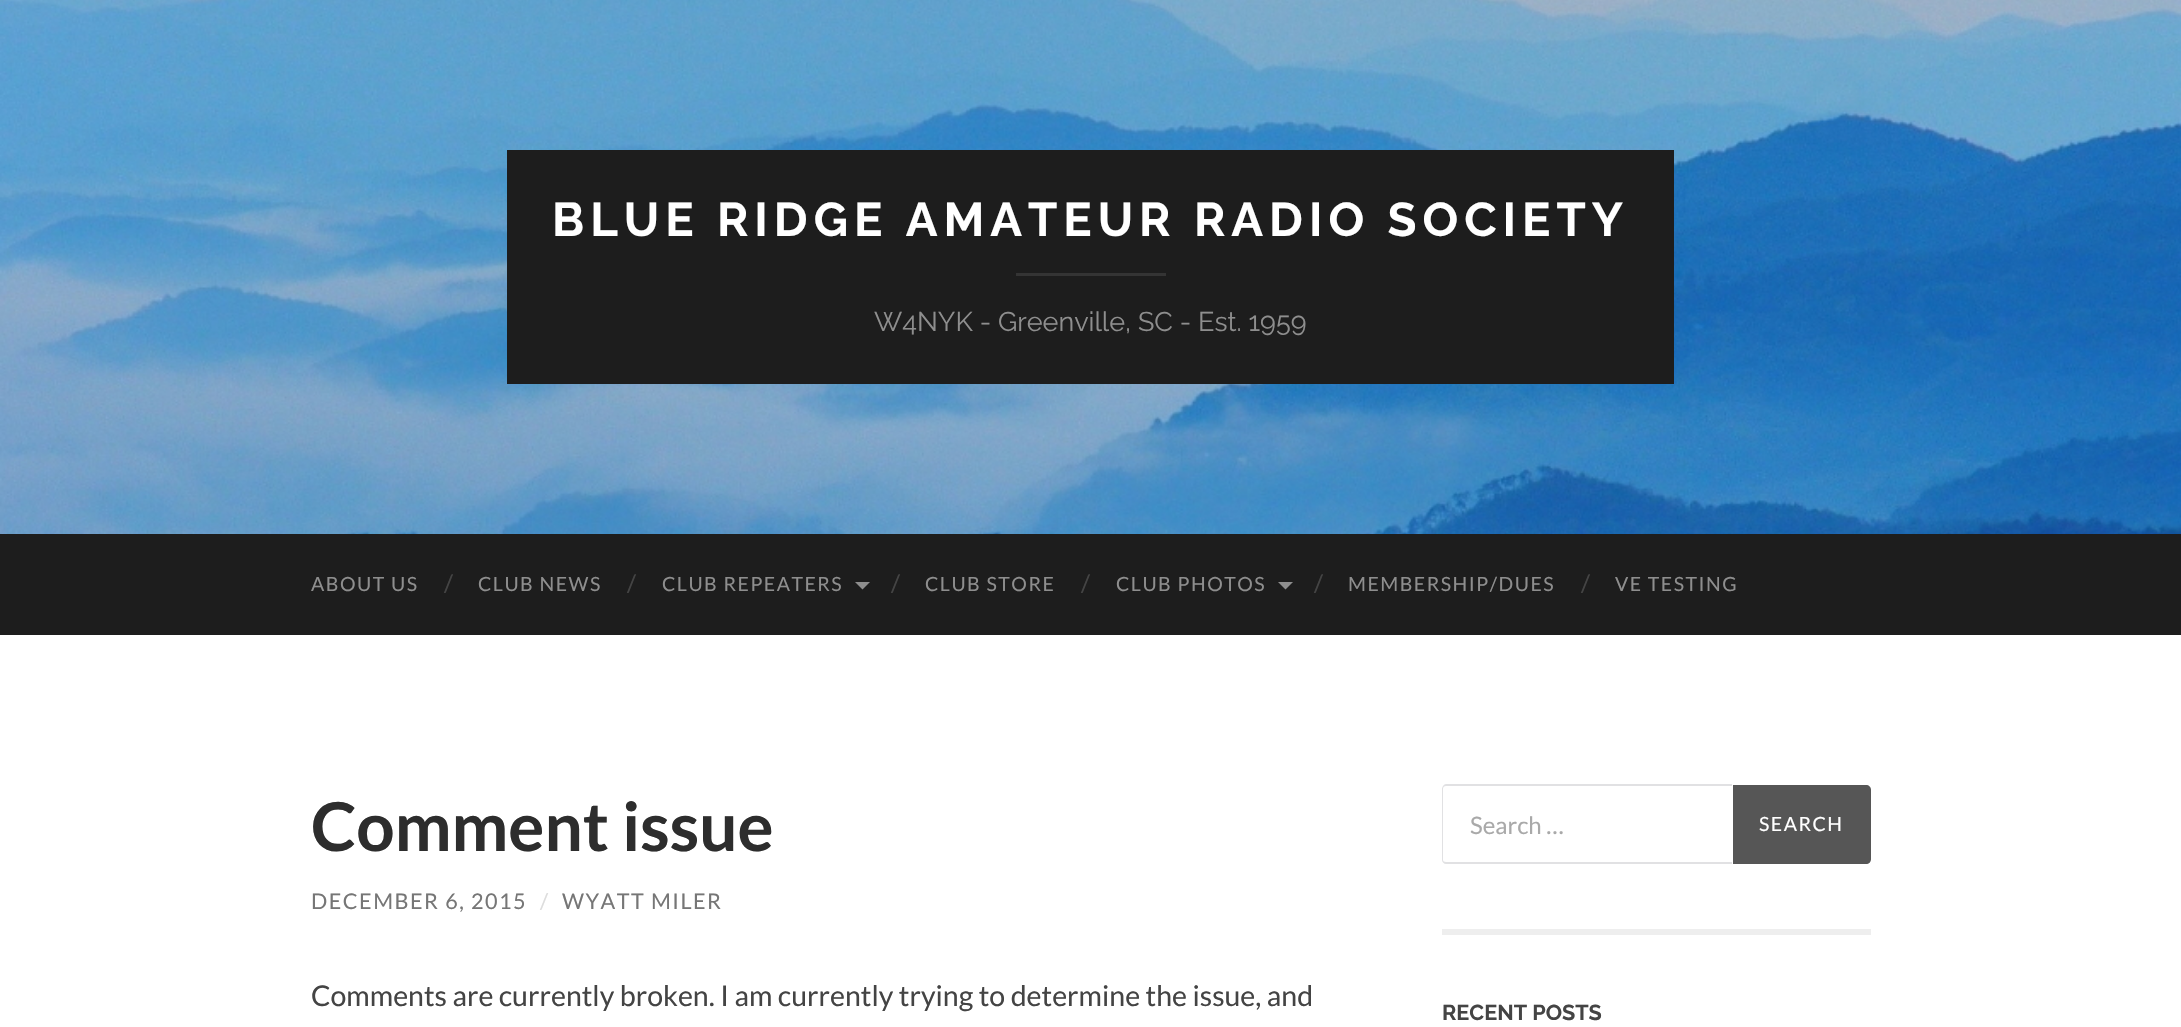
#include "include/core/SkBlurTypes.h"
#include "include/core/SkCanvas.h"
#include "include/core/SkData.h"
#include "include/core/SkFont.h"
#include "include/core/SkFontMgr.h"
#include "include/core/SkImage.h"
#include "include/core/SkMaskFilter.h"
#include "include/core/SkPaint.h"
#include "include/core/SkPathBuilder.h"
#include "include/core/SkTextBlob.h"
#include "include/effects/SkDashPathEffect.h"
#include "include/effects/SkGradientShader.h"
#include "include/utils/SkParsePath.h"

extern sk_sp<SkFontMgr> fontMgr;

void draw(SkCanvas* canvas) {
    SkPaint p;
    p.setAntiAlias(true);
    auto font = [&](const char* family, int weight, float size, bool italic = false) {
        SkFontStyle style(weight, SkFontStyle::kNormal_Width,
            italic ? SkFontStyle::kItalic_Slant : SkFontStyle::kUpright_Slant);
        SkFont result(fontMgr->matchFamilyStyle(family, style), size);
        result.setSubpixel(true);
        return result;
    };
    auto drawTracked = [&](const char* s, float x, float y, const SkFont& font, const SkPaint& ink, float letter, float word) {
        std::vector<SkGlyphID> glyphs(font.countText(s, strlen(s), SkTextEncoding::kUTF8));
        std::vector<float> xs(glyphs.size());
        font.textToGlyphs(s, strlen(s), SkTextEncoding::kUTF8, glyphs);
        font.getXPos(glyphs, xs, x);
        float extra = 0;
        for (size_t i = 0; i < glyphs.size(); i++) {
            xs[i] += extra;
            extra += letter + word * (glyphs[i] == font.unicharToGlyph(' '));
        }
        canvas->drawTextBlob(SkTextBlob::MakeFromPosHGlyphs(glyphs, xs, y, font), 0, 0, ink);
    };
    auto drawPhoto = [&](const char* path, float l, float t, float r, float b) {
        auto image = SkImages::DeferredFromEncodedData(SkData::MakeFromFileName(path));
        canvas->drawImageRect(image, SkRect::MakeLTRB(l, t, r, b), SkSamplingOptions());
    };
    canvas->clear(0xFFFFFFFF);
    drawPhoto("media/1.png", 0, 0, 2181, 534);
    p.setColor(0xFF1D1D1D);
    canvas->drawRect(SkRect::MakeLTRB(507, 150, 1674, 384), p);
    auto font1 = font("Raleway", 100, 47.25f);
    p.setColor(0xFFFFFFFF);
    drawTracked("BLUE RIDGE AMATEUR RADIO SOCIETY", 552, 236, font1, p, 6, 0);
    p.setColor(0xFF343434);
    canvas->drawRect(SkRect::MakeLTRB(1016, 273, 1166, 276), p);
    auto font2 = font("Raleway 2", 100, 27);
    p.setColor(0xFF8E8E8E);
    canvas->drawString("W4NYK - Greenville, SC - Est. 1959", 874, 331, font2, p);
    p.setColor(0xFF1D1D1D);
    canvas->drawRect(SkRect::MakeLTRB(0, 534, 2181, 635), p);
    auto font3 = font("Lato", 400, 19.5f);
    p.setColor(0xFF8E8E8E);
    drawTracked("ABOUT US", 311, 591, font3, p, 1.5f, 0);
    auto font4 = font("Lato", 400, 24);
    p.setColor(0xFF444444);
    canvas->drawString("/", 444, 592, font4, p);
    p.setColor(0xFF8E8E8E);
    drawTracked("CLUB NEWS", 478, 591, font3, p, 1.5f, 0);
    p.setColor(0xFF444444);
    canvas->drawString("/", 627, 592, font4, p);
    p.setColor(0xFF8E8E8E);
    drawTracked("CLUB REPEATERS", 662, 591, font3, p, 1.5f, 0);
    canvas->drawPath(SkPathBuilder().moveTo(855, 582).lineTo(870, 582).lineTo(862.5f, 589.5f).close().detach(), p);
    p.setColor(0xFF444444);
    canvas->drawString("/", 891, 592, font4, p);
    p.setColor(0xFF8E8E8E);
    drawTracked("CLUB STORE", 925, 591, font3, p, 1.5f, 0);
    p.setColor(0xFF444444);
    canvas->drawString("/", 1081, 592, font4, p);
    p.setColor(0xFF8E8E8E);
    drawTracked("CLUB PHOTOS", 1116, 591, font3, p, 1.5f, 0);
    canvas->drawPath(SkPathBuilder().moveTo(1278, 582).lineTo(1293, 582).lineTo(1285.5f, 589.5f).close().detach(), p);
    p.setColor(0xFF444444);
    canvas->drawString("/", 1314, 592, font4, p);
    p.setColor(0xFF8E8E8E);
    drawTracked("MEMBERSHIP/DUES", 1348, 591, font3, p, 1.5f, 0);
    p.setColor(0xFF444444);
    canvas->drawString("/", 1581, 592, font4, p);
    p.setColor(0xFF8E8E8E);
    drawTracked("VE TESTING", 1615, 591, font3, p, 1.5f, 0);
    auto font5 = font("Lato", 700, 67.5f);
    p.setColor(0xFF2D2D2D);
    canvas->drawString("Comment issue", 311, 851, font5, p);
    auto font6 = font("Lato", 400, 21.6f);
    p.setColor(0xFF767676);
    drawTracked("DECEMBER 6, 2015", 311, 909, font6, p, 1.5f, 0);
    p.setColor(0xFFDDDDDD);
    drawTracked("/", 540, 909, font6, p, 1.5f, 0);
    p.setColor(0xFF767676);
    drawTracked("WYATT MILER", 562, 909, font6, p, 1.5f, 0);
    auto font7 = font("Lato", 400, 28.5f);
    p.setColor(0xFF444444);
    canvas->drawString("Comments are currently broken. I am currently trying to determine the issue, and", 311, 1006, font7, p);
    p.setColor(0xFFEEEEEE);
    canvas->drawRect(SkRect::MakeLTRB(1442, 929, 1871, 935), p);
    p.setColor(0xFFE1E1E3);
    canvas->drawPath(SkPathBuilder(SkPathFillType::kEvenOdd).moveTo(1446, 784).lineTo(1732, 784).lineTo(1732, 864).lineTo(1446, 864).cubicTo(1444, 864, 1442, 862, 1442, 860).lineTo(1442, 789).cubicTo(1442, 787, 1444, 784, 1446, 784).close().moveTo(1446, 786).lineTo(1732, 786).lineTo(1732, 862).lineTo(1446, 862).cubicTo(1444, 862, 1443, 861, 1443, 860).lineTo(1443, 789).cubicTo(1443, 787, 1444, 786, 1446, 786).close().detach(), p);
    p.setColor(0xFFA9A9A9);
    canvas->drawString("Search …", 1470, 834, font4, p);
    p.setColor(0xFF565656);
    canvas->drawPath(SkPathBuilder().moveTo(1733, 785).lineTo(1866, 785).cubicTo(1869, 785, 1871, 787, 1871, 790).lineTo(1871, 859).cubicTo(1871, 862, 1869, 864, 1866, 864).lineTo(1733, 864).close().detach(), p);
    p.setColor(0xFFFFFFFF);
    drawTracked("SEARCH", 1759, 831, font3, p, 1.5f, 0);
    auto font8 = font("Raleway", 100, 21.6f);
    p.setColor(0xFF444444);
    canvas->drawString("RECENT POSTS", 1442, 1020, font8, p);
}
